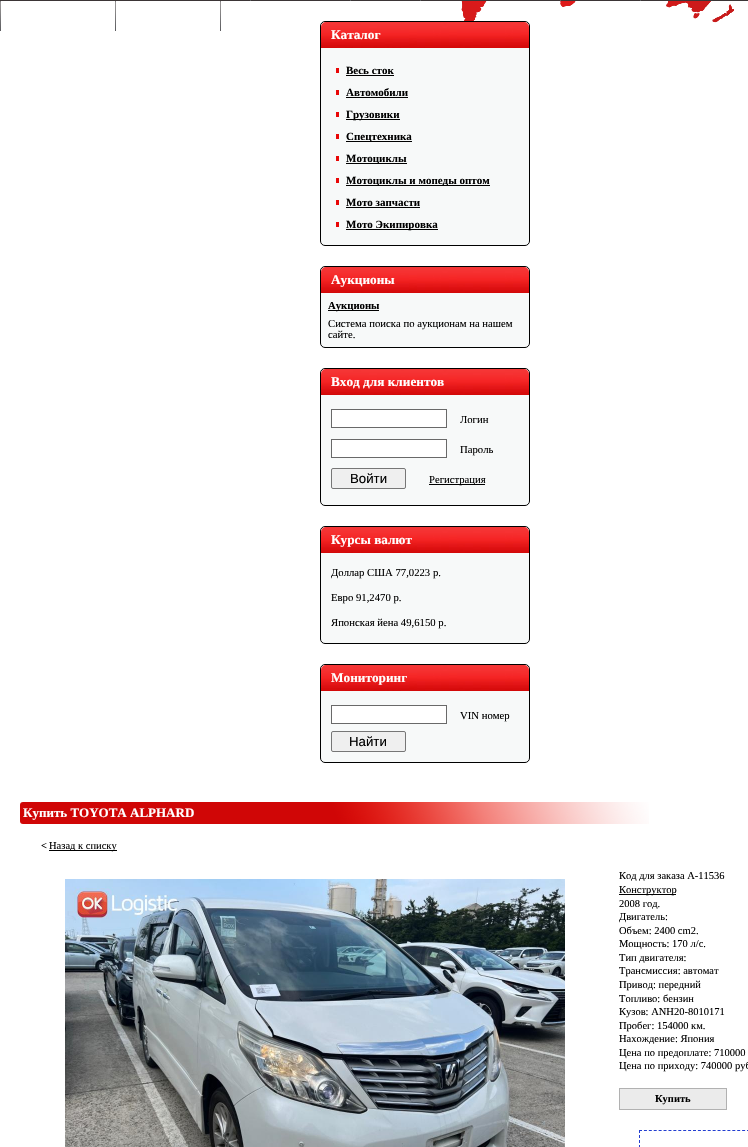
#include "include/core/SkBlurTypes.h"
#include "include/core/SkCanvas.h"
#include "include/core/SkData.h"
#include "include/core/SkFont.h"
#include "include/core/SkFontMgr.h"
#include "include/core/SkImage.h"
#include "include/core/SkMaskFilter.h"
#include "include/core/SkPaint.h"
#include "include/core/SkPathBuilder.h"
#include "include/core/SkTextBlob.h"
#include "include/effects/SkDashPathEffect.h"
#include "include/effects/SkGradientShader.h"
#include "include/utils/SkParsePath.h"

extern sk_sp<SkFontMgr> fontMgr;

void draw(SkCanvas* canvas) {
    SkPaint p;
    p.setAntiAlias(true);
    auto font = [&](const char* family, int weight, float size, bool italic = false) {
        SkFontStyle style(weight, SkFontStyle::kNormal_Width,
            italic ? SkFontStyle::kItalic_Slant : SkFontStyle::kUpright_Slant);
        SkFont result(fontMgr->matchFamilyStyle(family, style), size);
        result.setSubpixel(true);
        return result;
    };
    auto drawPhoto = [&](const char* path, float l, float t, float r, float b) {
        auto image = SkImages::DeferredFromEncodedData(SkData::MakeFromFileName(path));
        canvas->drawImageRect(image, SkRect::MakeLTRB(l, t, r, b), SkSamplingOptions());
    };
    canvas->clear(0xFFFFFFFF);
    drawPhoto("media/1.png", 461, 1, 734, 23);
    {
        const struct { float l, t, r, b; SkColor color; } items[] = {
            {0, 0, 748, 1, 0xFF3B3536},
            {250, 0, 251, 1, 0xFF5C5C60},
            {350, 0, 351, 1, 0xFF5C5C60},
            {420, 0, 421, 1, 0xFF5C5C60},
            {560, 0, 561, 1, 0xFF5C5C60},
            {640, 0, 641, 1, 0xFF5C5C60},
        };
        for (auto [l, t, r, b, color] : items) {
            p.setColor(color);
            canvas->drawRect(SkRect::MakeLTRB(l, t, r, b), p);
        }
    }
    drawPhoto("media/2.png", 0, 1, 1, 31);
    drawPhoto("media/2.png", 115, 1, 116, 31);
    drawPhoto("media/2.png", 220, 1, 221, 31);
    p.setColor(0xFFF7F9F9);
    canvas->drawRoundRect(SkRect::MakeLTRB(320.5f, 21.5f, 529.5f, 245.5f), 4.5f, 4.5f, p);
    p.setStyle(SkPaint::kStroke_Style);
    p.setStrokeWidth(1);
    p.setColor(0xFF000000);
    canvas->drawRoundRect(SkRect::MakeLTRB(320.5f, 21.5f, 529.5f, 245.5f), 4.5f, 4.5f, p);
    drawPhoto("media/3.png", 321, 22, 529, 48);
    auto font1 = font("Liberation Serif", 700, 13.25f);
    p.setStyle(SkPaint::kFill_Style);
    p.setColor(0xFFFFFFFF);
    canvas->drawString("Каталог", 331, 39, font1, p);
    p.setColor(0xFFE90707);
    canvas->drawRect(SkRect::MakeLTRB(336, 68, 339, 73), p);
    auto font2 = font("Liberation Serif", 700, 11);
    p.setColor(0xFF000000);
    canvas->drawString("Весь сток", 346, 74, font2, p);
    canvas->drawRect(SkRect::MakeLTRB(346, 75, 394, 76), p);
    p.setColor(0xFFE90707);
    canvas->drawRect(SkRect::MakeLTRB(336, 90, 339, 95), p);
    p.setColor(0xFF000000);
    canvas->drawString("Автомобили", 346, 96, font2, p);
    {
        const struct { float l, t, r, b; SkColor color; } items[] = {
            {346, 97, 408, 98, 0xFF000000},
            {336, 112, 339, 117, 0xFFE90707},
            {346, 119, 400, 120, 0xFF000000},
        };
        for (auto [l, t, r, b, color] : items) {
            p.setColor(color);
            canvas->drawRect(SkRect::MakeLTRB(l, t, r, b), p);
        }
    }
    canvas->drawString("Грузовики", 346, 118, font2, p);
    p.setColor(0xFFE90707);
    canvas->drawRect(SkRect::MakeLTRB(336, 134, 339, 139), p);
    p.setColor(0xFF000000);
    canvas->drawRect(SkRect::MakeLTRB(346, 141, 412, 142), p);
    canvas->drawString("Cпецтехника", 346, 140, font2, p);
    p.setColor(0xFFE90707);
    canvas->drawRect(SkRect::MakeLTRB(336, 156, 339, 161), p);
    p.setColor(0xFF000000);
    canvas->drawRect(SkRect::MakeLTRB(346, 163, 407, 164), p);
    canvas->drawString("Мотоциклы", 346, 162, font2, p);
    p.setColor(0xFFE90707);
    canvas->drawRect(SkRect::MakeLTRB(336, 178, 339, 183), p);
    p.setColor(0xFF000000);
    canvas->drawRect(SkRect::MakeLTRB(346, 185, 490, 186), p);
    canvas->drawString("Мотоциклы и мопеды оптом", 346, 184, font2, p);
    p.setColor(0xFFE90707);
    canvas->drawRect(SkRect::MakeLTRB(336, 200, 339, 205), p);
    p.setColor(0xFF000000);
    canvas->drawString("Мото запчасти", 346, 206, font2, p);
    {
        const struct { float l, t, r, b; SkColor color; } items[] = {
            {346, 207, 420, 208, 0xFF000000},
            {336, 222, 339, 227, 0xFFE90707},
            {346, 229, 438, 230, 0xFF000000},
        };
        for (auto [l, t, r, b, color] : items) {
            p.setColor(color);
            canvas->drawRect(SkRect::MakeLTRB(l, t, r, b), p);
        }
    }
    canvas->drawString("Мото Экипировка", 346, 228, font2, p);
    p.setColor(0xFFF7F9F9);
    canvas->drawRoundRect(SkRect::MakeLTRB(320.5f, 266.5f, 529.5f, 347.5f), 4.5f, 4.5f, p);
    p.setStyle(SkPaint::kStroke_Style);
    p.setColor(0xFF000000);
    canvas->drawRoundRect(SkRect::MakeLTRB(320.5f, 266.5f, 529.5f, 347.5f), 4.5f, 4.5f, p);
    drawPhoto("media/3.png", 321, 267, 529, 293);
    p.setStyle(SkPaint::kFill_Style);
    p.setColor(0xFFFFFFFF);
    canvas->drawString("Аукционы", 331, 284, font1, p);
    p.setColor(0xFF000000);
    canvas->drawRect(SkRect::MakeLTRB(328, 310, 379, 311), p);
    auto font3 = font("Liberation Serif", 700, 10.7f);
    canvas->drawString("Аукционы", 328, 309, font3, p);
    auto font4 = font("Liberation Serif", 400, 10.7f);
    canvas->drawString("Система поиска по аукционам на нашем", 328, 327, font4, p);
    canvas->drawString("сайте.", 328, 338, font4, p);
    p.setColor(0xFFF7F9F9);
    canvas->drawRoundRect(SkRect::MakeLTRB(320.5f, 368.5f, 529.5f, 505.5f), 4.5f, 4.5f, p);
    p.setStyle(SkPaint::kStroke_Style);
    p.setColor(0xFF000000);
    canvas->drawRoundRect(SkRect::MakeLTRB(320.5f, 368.5f, 529.5f, 505.5f), 4.5f, 4.5f, p);
    drawPhoto("media/3.png", 321, 369, 529, 395);
    p.setStyle(SkPaint::kFill_Style);
    p.setColor(0xFFFFFFFF);
    canvas->drawString("Вход для клиентов", 331, 386, font1, p);
    canvas->drawRect(SkRect::MakeLTRB(331.5f, 409.5f, 446.5f, 427.5f), p);
    p.setStyle(SkPaint::kStroke_Style);
    p.setColor(0xFF696969);
    canvas->drawRect(SkRect::MakeLTRB(331.5f, 409.5f, 446.5f, 427.5f), p);
    p.setStyle(SkPaint::kFill_Style);
    p.setColor(0xFF000000);
    canvas->drawString("Логин", 460, 423, font4, p);
    p.setColor(0xFFFFFFFF);
    canvas->drawRect(SkRect::MakeLTRB(331.5f, 439.5f, 446.5f, 457.5f), p);
    p.setStyle(SkPaint::kStroke_Style);
    p.setColor(0xFF696969);
    canvas->drawRect(SkRect::MakeLTRB(331.5f, 439.5f, 446.5f, 457.5f), p);
    p.setStyle(SkPaint::kFill_Style);
    p.setColor(0xFF000000);
    canvas->drawString("Пароль", 460, 453, font4, p);
    p.setColor(0xFFEFEFEF);
    canvas->drawRoundRect(SkRect::MakeLTRB(331.5f, 468.5f, 405.5f, 488.5f), 1.5f, 1.5f, p);
    p.setStyle(SkPaint::kStroke_Style);
    p.setColor(0xFF767676);
    canvas->drawRoundRect(SkRect::MakeLTRB(331.5f, 468.5f, 405.5f, 488.5f), 1.5f, 1.5f, p);
    auto font5 = font("Liberation Sans", 400, 13.25f);
    p.setStyle(SkPaint::kFill_Style);
    p.setColor(0xFF000000);
    canvas->drawString("Войти", 350, 483, font5, p);
    canvas->drawRect(SkRect::MakeLTRB(429, 484, 485, 485), p);
    canvas->drawString("Регистрация", 429, 483, font4, p);
    p.setColor(0xFFF7F9F9);
    canvas->drawRoundRect(SkRect::MakeLTRB(320.5f, 526.5f, 529.5f, 643.5f), 4.5f, 4.5f, p);
    p.setStyle(SkPaint::kStroke_Style);
    p.setColor(0xFF000000);
    canvas->drawRoundRect(SkRect::MakeLTRB(320.5f, 526.5f, 529.5f, 643.5f), 4.5f, 4.5f, p);
    drawPhoto("media/3.png", 321, 527, 529, 553);
    p.setStyle(SkPaint::kFill_Style);
    p.setColor(0xFFFFFFFF);
    canvas->drawString("Курсы валют", 331, 544, font1, p);
    p.setColor(0xFF000000);
    {
        const struct { const char* s; float x, y; } items[] = {
            {"Доллар США 77,0223 р.", 331, 576},
            {"Евро 91,2470 р.", 331, 601},
            {"Японская йена 49,6150 р.", 331, 626},
        };
        for (auto [s, x, y] : items) {
            canvas->drawString(s, x, y, font4, p);
        }
    }
    p.setColor(0xFFF7F9F9);
    canvas->drawRoundRect(SkRect::MakeLTRB(320.5f, 664.5f, 529.5f, 762.5f), 4.5f, 4.5f, p);
    p.setStyle(SkPaint::kStroke_Style);
    p.setColor(0xFF000000);
    canvas->drawRoundRect(SkRect::MakeLTRB(320.5f, 664.5f, 529.5f, 762.5f), 4.5f, 4.5f, p);
    drawPhoto("media/3.png", 321, 665, 529, 691);
    p.setStyle(SkPaint::kFill_Style);
    p.setColor(0xFFFFFFFF);
    canvas->drawString("Мониторинг", 331, 682, font1, p);
    canvas->drawRect(SkRect::MakeLTRB(331.5f, 705.5f, 446.5f, 723.5f), p);
    p.setStyle(SkPaint::kStroke_Style);
    p.setColor(0xFF696969);
    canvas->drawRect(SkRect::MakeLTRB(331.5f, 705.5f, 446.5f, 723.5f), p);
    p.setStyle(SkPaint::kFill_Style);
    p.setColor(0xFF000000);
    canvas->drawString("VIN номер", 460, 719, font4, p);
    p.setColor(0xFFEFEFEF);
    canvas->drawRoundRect(SkRect::MakeLTRB(331.5f, 731.5f, 405.5f, 751.5f), 1.5f, 1.5f, p);
    p.setStyle(SkPaint::kStroke_Style);
    p.setColor(0xFF767676);
    canvas->drawRoundRect(SkRect::MakeLTRB(331.5f, 731.5f, 405.5f, 751.5f), 1.5f, 1.5f, p);
    p.setStyle(SkPaint::kFill_Style);
    p.setColor(0xFF000000);
    canvas->drawString("Найти", 349, 746, font5, p);
    drawPhoto("media/4.png", 20, 802, 649, 824);
    auto font6 = font("Liberation Serif", 700, 13);
    p.setColor(0xFFFFFFFF);
    canvas->drawString("Купить TOYOTA ALPHARD", 23, 817, font6, p);
    auto font7 = font("Liberation Serif", 700, 10.5f);
    p.setColor(0xFF000000);
    canvas->drawString("<", 41, 849, font7, p);
    canvas->drawRect(SkRect::MakeLTRB(49, 850, 117, 851), p);
    auto font8 = font("Liberation Serif", 400, 10.5f);
    canvas->drawString("Назад к списку", 49, 849, font8, p);
    drawPhoto("media/5.png", 65, 879, 565, 1147);
    canvas->drawString("Код для заказа A-11536", 619, 879, font8, p);
    canvas->drawRect(SkRect::MakeLTRB(619, 894, 676, 895), p);
    {
        const struct { const char* s; float x, y; } items[] = {
            {"Конструктор", 619, 893},
            {"2008 год.", 619, 907},
            {"Двигатель:", 619, 920},
            {"Объем: 2400 cm2.", 619, 934},
            {"Мощность: 170 л/с.", 619, 947},
            {"Тип двигателя:", 619, 961},
            {"Трансмиссия: автомат", 619, 974},
            {"Привод: передний", 619, 988},
            {"Топливо: бензин", 619, 1002},
            {"Кузов: ANH20-8010171", 619, 1015},
            {"Пробег: 154000 км.", 619, 1029},
            {"Нахождение: Япония", 619, 1042},
            {"Цена по предоплате: 710000", 619, 1056},
            {"Цена по приходу: 740000 руб", 619, 1069},
        };
        for (auto [s, x, y] : items) {
            canvas->drawString(s, x, y, font8, p);
        }
    }
    p.setColor(0xFFEBEBEB);
    canvas->drawRect(SkRect::MakeLTRB(619.5f, 1088.5f, 726.5f, 1109.5f), p);
    p.setStyle(SkPaint::kStroke_Style);
    p.setColor(0xFFB1B1B1);
    canvas->drawRect(SkRect::MakeLTRB(619.5f, 1088.5f, 726.5f, 1109.5f), p);
    p.setStyle(SkPaint::kFill_Style);
    p.setColor(0xFF000000);
    canvas->drawString("Купить", 655, 1102, font7, p);
    p.setStyle(SkPaint::kStroke_Style);
    p.setColor(0xFF223DD0);
    p.setPathEffect(SkDashPathEffect::Make({{3, 1.91f}}, 0));
    canvas->drawPath(SkPathBuilder().moveTo(639, 1130.5f).lineTo(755, 1130.5f).detach(), p);
    p.setPathEffect(nullptr);
    p.setPathEffect(SkDashPathEffect::Make({{3, 2}}, 0));
    canvas->drawPath(SkPathBuilder().moveTo(639.5f, 1130).lineTo(639.5f, 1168).detach(), p);
    p.setPathEffect(nullptr);
}
